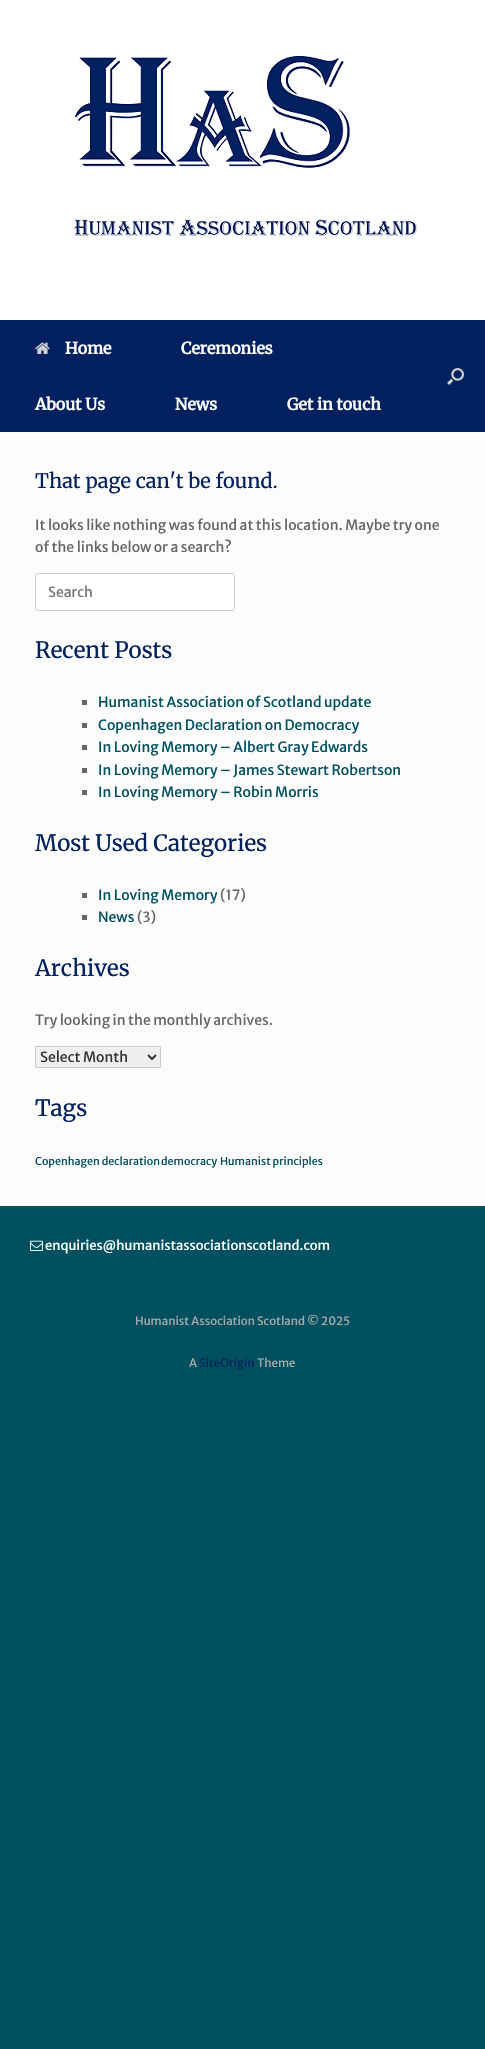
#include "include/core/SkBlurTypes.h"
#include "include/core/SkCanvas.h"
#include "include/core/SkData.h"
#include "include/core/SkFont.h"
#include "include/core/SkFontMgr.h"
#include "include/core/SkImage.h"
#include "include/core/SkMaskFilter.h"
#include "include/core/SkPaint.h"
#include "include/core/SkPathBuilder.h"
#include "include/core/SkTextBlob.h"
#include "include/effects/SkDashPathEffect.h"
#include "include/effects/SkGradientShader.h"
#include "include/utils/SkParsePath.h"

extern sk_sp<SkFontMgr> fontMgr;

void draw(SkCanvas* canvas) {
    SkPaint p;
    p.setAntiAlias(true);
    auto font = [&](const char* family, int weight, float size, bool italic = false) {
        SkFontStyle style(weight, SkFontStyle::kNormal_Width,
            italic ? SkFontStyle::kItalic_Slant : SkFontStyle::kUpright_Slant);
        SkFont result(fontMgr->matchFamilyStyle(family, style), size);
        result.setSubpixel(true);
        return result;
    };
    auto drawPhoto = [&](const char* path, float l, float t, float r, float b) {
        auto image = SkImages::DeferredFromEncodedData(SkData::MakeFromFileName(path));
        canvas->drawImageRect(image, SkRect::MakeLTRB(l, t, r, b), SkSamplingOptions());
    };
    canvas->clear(0xFF005060);
    p.setColor(0xFFFFFFFF);
    canvas->drawRect(SkRect::MakeLTRB(0, 0, 485, 320), p);
    drawPhoto("media/1.png", 74, 56, 418, 236);
    p.setColor(0xFF002060);
    canvas->drawRect(SkRect::MakeLTRB(0, 320, 485, 432), p);
    drawPhoto("media/2.png", 35, 342, 50, 354);
    auto font1 = font("Merriweather", 700, 16);
    p.setColor(0xFFFFFFFF);
    {
        const struct { const char* s; float x, y; } items[] = {
            {"Home", 65, 354},
            {"Ceremonies", 181, 354},
            {"About Us", 35, 410},
            {"News", 175, 410},
            {"Get in touch", 287, 410},
        };
        for (auto [s, x, y] : items) {
            canvas->drawString(s, x, y, font1, p);
        }
    }
    drawPhoto("media/3.png", 447, 368, 464, 385);
    p.setColor(0xFFFCFCFC);
    canvas->drawRect(SkRect::MakeLTRB(0, 432, 485, 1206), p);
    auto font2 = font("Merriweather", 300, 20);
    p.setColor(0xFF002060);
    canvas->drawString("That page can't be found.", 35, 488, font2, p);
    auto font3 = font("Merriweather Sans", 400, 14);
    p.setColor(0xFF666666);
    canvas->drawString("It looks like nothing was found at this location. Maybe try one", 35, 530, font3, p);
    canvas->drawString("of the links below or a search?", 35, 552, font3, p);
    p.setColor(0xFFFFFFFF);
    canvas->drawRoundRect(SkRect::MakeLTRB(35.5f, 573.5f, 234.5f, 610.5f), 2.5f, 2.5f, p);
    p.setStyle(SkPaint::kStroke_Style);
    p.setStrokeWidth(1);
    p.setColor(0xFFCCCCCC);
    canvas->drawRoundRect(SkRect::MakeLTRB(35.5f, 573.5f, 234.5f, 610.5f), 2.5f, 2.5f, p);
    p.setStyle(SkPaint::kFill_Style);
    p.setColor(0xFF757575);
    canvas->drawString("Search", 48, 597, font3, p);
    auto font4 = font("Merriweather", 300, 22.4f);
    p.setColor(0xFF002060);
    canvas->drawString("Recent Posts", 35, 658, font4, p);
    p.setColor(0xFF666666);
    canvas->drawRect(SkRect::MakeLTRB(82, 700, 87, 705), p);
    p.setColor(0xFF005060);
    canvas->drawString("Humanist Association of Scotland update", 98, 707, font3, p);
    p.setColor(0xFF666666);
    canvas->drawRect(SkRect::MakeLTRB(82, 723, 87, 728), p);
    p.setColor(0xFF005060);
    canvas->drawString("Copenhagen Declaration on Democracy", 98, 730, font3, p);
    p.setColor(0xFF666666);
    canvas->drawRect(SkRect::MakeLTRB(82, 745, 87, 750), p);
    p.setColor(0xFF005060);
    canvas->drawString("In Loving Memory – Albert Gray Edwards", 98, 752, font3, p);
    p.setColor(0xFF666666);
    canvas->drawRect(SkRect::MakeLTRB(82, 768, 87, 773), p);
    p.setColor(0xFF005060);
    canvas->drawString("In Loving Memory – James Stewart Robertson", 98, 775, font3, p);
    p.setColor(0xFF666666);
    canvas->drawRect(SkRect::MakeLTRB(82, 790, 87, 795), p);
    p.setColor(0xFF005060);
    canvas->drawString("In Loving Memory – Robin Morris", 98, 797, font3, p);
    p.setColor(0xFF002060);
    canvas->drawString("Most Used Categories", 35, 851, font4, p);
    p.setColor(0xFF666666);
    canvas->drawRect(SkRect::MakeLTRB(82, 893, 87, 898), p);
    p.setColor(0xFF005060);
    canvas->drawString("In Loving Memory", 98, 900, font3, p);
    p.setColor(0xFF666666);
    canvas->drawString("(17)", 220, 900, font3, p);
    canvas->drawRect(SkRect::MakeLTRB(82, 915, 87, 920), p);
    p.setColor(0xFF005060);
    canvas->drawString("News", 98, 922, font3, p);
    p.setColor(0xFF666666);
    canvas->drawString("(3)", 137, 922, font3, p);
    p.setColor(0xFF002060);
    canvas->drawString("Archives", 35, 976, font4, p);
    p.setColor(0xFF666666);
    canvas->drawString("Try looking in the monthly archives.", 35, 1025, font3, p);
    p.setColor(0xFFEFEFEF);
    canvas->drawRect(SkRect::MakeLTRB(35.5f, 1046.5f, 160.5f, 1067.5f), p);
    p.setStyle(SkPaint::kStroke_Style);
    p.setColor(0xFFCCCCCC);
    canvas->drawRect(SkRect::MakeLTRB(35.5f, 1046.5f, 160.5f, 1067.5f), p);
    p.setStrokeWidth(2);
    p.setColor(0xFF333333);
    canvas->drawPath(SkPathBuilder().moveTo(148, 1055).lineTo(152, 1059).lineTo(156, 1055).detach(), p);
    p.setStyle(SkPaint::kFill_Style);
    canvas->drawString("Select Month", 40, 1062, font3, p);
    p.setColor(0xFF002060);
    canvas->drawString("Tags", 35, 1116, font4, p);
    auto font5 = font("Merriweather Sans", 400, 10.75f);
    p.setColor(0xFF005060);
    {
        const struct { const char* s; float x, y; } items[] = {
            {"Copenhagen declaration", 35, 1165},
            {"democracy", 161, 1165},
            {"Humanist principles", 220, 1165},
        };
        for (auto [s, x, y] : items) {
            canvas->drawString(s, x, y, font5, p);
        }
    }
    drawPhoto("media/4.png", 30, 1240, 43, 1251);
    auto font6 = font("Merriweather Sans", 400, 13);
    p.setColor(0xFFFFFFFF);
    canvas->drawString("enquiries@humanistassociationscotland.com", 45, 1250, font6, p);
    auto font7 = font("Merriweather Sans", 400, 11.5f);
    p.setColor(0xFFAAAAAA);
    canvas->drawString("Humanist Association Scotland © 2025", 135, 1325, font7, p);
    canvas->drawString("A", 189, 1367, font7, p);
    p.setColor(0xFF002060);
    canvas->drawString("SiteOrigin", 199, 1367, font7, p);
    p.setColor(0xFFAAAAAA);
    canvas->drawString("Theme", 257, 1367, font7, p);
}
